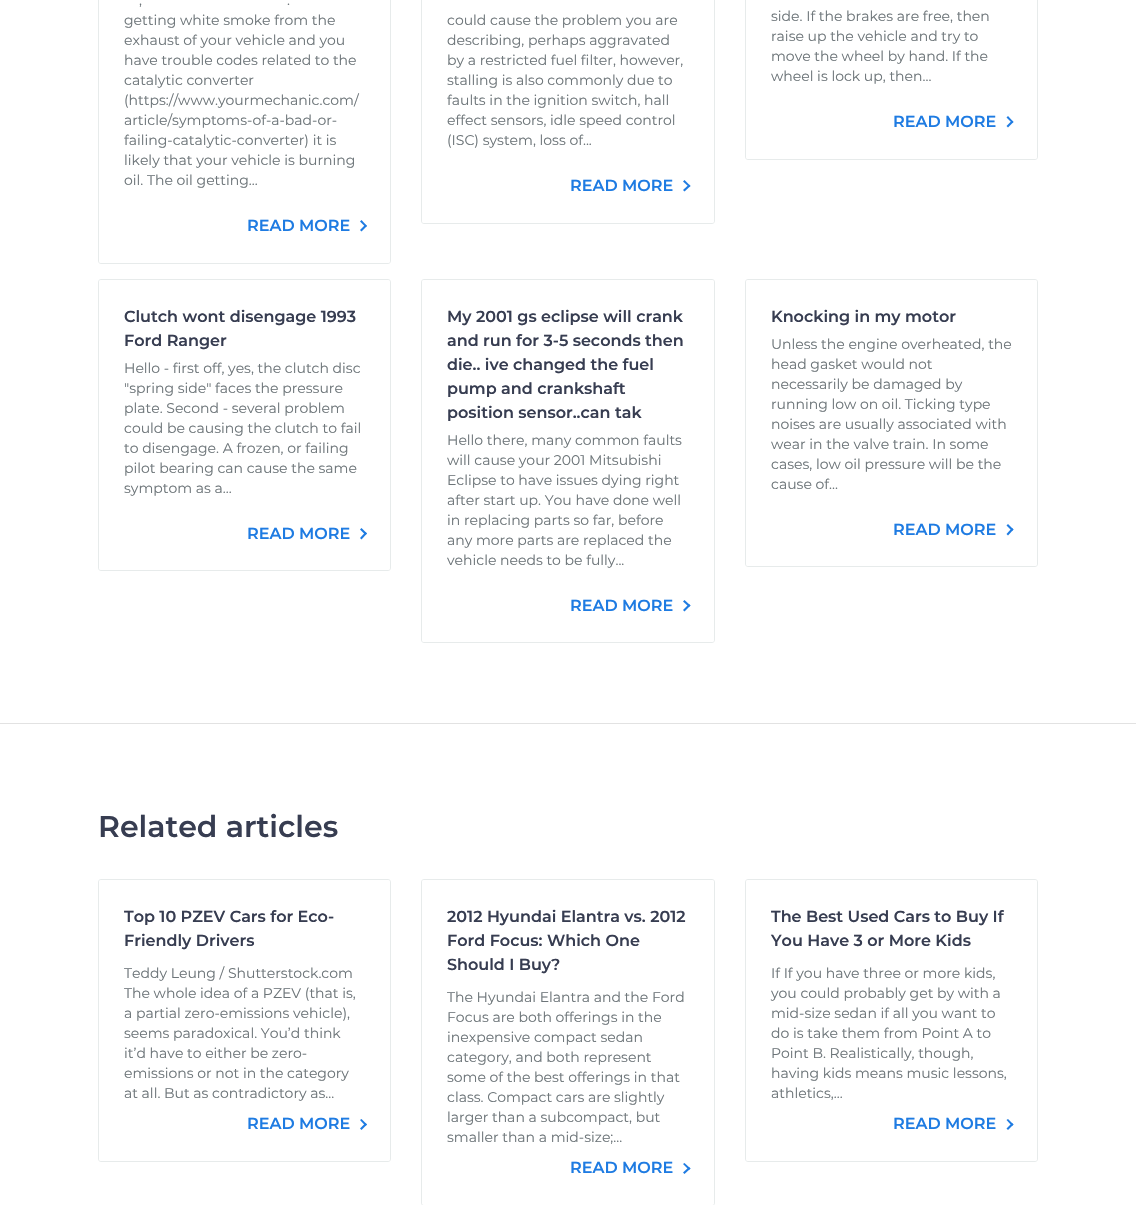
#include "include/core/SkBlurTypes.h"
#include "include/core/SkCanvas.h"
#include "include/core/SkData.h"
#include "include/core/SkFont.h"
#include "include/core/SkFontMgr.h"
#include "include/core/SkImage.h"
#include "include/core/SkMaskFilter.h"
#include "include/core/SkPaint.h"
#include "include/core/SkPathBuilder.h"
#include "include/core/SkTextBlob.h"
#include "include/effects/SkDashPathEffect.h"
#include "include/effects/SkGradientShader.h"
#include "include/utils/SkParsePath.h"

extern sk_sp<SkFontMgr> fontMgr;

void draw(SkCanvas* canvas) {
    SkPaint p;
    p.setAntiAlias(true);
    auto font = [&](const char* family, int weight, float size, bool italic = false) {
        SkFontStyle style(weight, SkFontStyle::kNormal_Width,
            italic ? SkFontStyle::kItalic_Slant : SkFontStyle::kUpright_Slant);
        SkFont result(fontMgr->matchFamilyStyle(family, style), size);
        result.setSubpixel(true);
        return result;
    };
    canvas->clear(0xFFFFFFFF);
    p.setStyle(SkPaint::kStroke_Style);
    p.setStrokeWidth(1);
    p.setColor(0xFFE7EBEB);
    canvas->drawRoundRect(SkRect::MakeLTRB(98.5f, -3.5f, 390.5f, 263.5f), 2.5f, 2.5f, p);
    p.setStyle(SkPaint::kFill_Style);
    p.setColor(0xFFFFFFFF);
    canvas->drawRoundRect(SkRect::MakeLTRB(99, -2, 390, 263), 2, 2, p);
    auto font1 = font("Montserrat", 400, 14);
    p.setColor(0xFF6D7579);
    {
        const struct { const char* s; float x, y; } items[] = {
            {",", 139, 5},
            {".", 287, 5},
            {"getting white smoke from the", 124, 25},
            {"exhaust of your vehicle and you", 124, 45},
            {"have trouble codes related to the", 124, 65},
            {"catalytic converter", 124, 85},
            {"(https://www.yourmechanic.com/", 124, 105},
            {"article/symptoms-of-a-bad-or-", 124, 125},
            {"failing-catalytic-converter) it is", 124, 145},
            {"likely that your vehicle is burning", 124, 165},
            {"oil. The oil getting...", 124, 185},
        };
        for (auto [s, x, y] : items) {
            canvas->drawString(s, x, y, font1, p);
        }
    }
    auto font2 = font("Montserrat", 600, 16);
    p.setColor(0xFF1E7BE2);
    canvas->drawString("READ MORE", 247, 231, font2, p);
    canvas->drawPath(SkPathBuilder().moveTo(360, 221.5f).lineTo(361.5f, 220).lineTo(367, 226).lineTo(365.5f, 227).close().detach(), p);
    canvas->drawPath(SkPathBuilder().moveTo(360, 230).lineTo(365.5f, 224.5f).lineTo(367, 226).lineTo(361.5f, 231.5f).close().detach(), p);
    p.setStyle(SkPaint::kStroke_Style);
    p.setColor(0xFFE7EBEB);
    canvas->drawRoundRect(SkRect::MakeLTRB(421.5f, -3.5f, 714.5f, 223.5f), 2.5f, 2.5f, p);
    p.setStyle(SkPaint::kFill_Style);
    p.setColor(0xFFFFFFFF);
    canvas->drawRoundRect(SkRect::MakeLTRB(422, -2, 714, 223), 2, 2, p);
    p.setColor(0xFF6D7579);
    {
        const struct { const char* s; float x, y; } items[] = {
            {"could cause the problem you are", 447, 25},
            {"describing, perhaps aggravated", 447, 45},
            {"by a restricted fuel filter, however,", 447, 65},
            {"stalling is also commonly due to", 447, 85},
            {"faults in the ignition switch, hall", 447, 105},
            {"effect sensors, idle speed control", 447, 125},
            {"(ISC) system, loss of...", 447, 145},
        };
        for (auto [s, x, y] : items) {
            canvas->drawString(s, x, y, font1, p);
        }
    }
    p.setColor(0xFF1E7BE2);
    canvas->drawString("READ MORE", 570, 191, font2, p);
    canvas->drawPath(SkPathBuilder().moveTo(683, 181.5f).lineTo(684.5f, 180).lineTo(690.5f, 186).lineTo(689, 187).close().detach(), p);
    canvas->drawPath(SkPathBuilder().moveTo(683, 190).lineTo(689, 184.5f).lineTo(690.5f, 186).lineTo(684.5f, 191.5f).close().detach(), p);
    p.setStyle(SkPaint::kStroke_Style);
    p.setColor(0xFFE7EBEB);
    canvas->drawRoundRect(SkRect::MakeLTRB(745.5f, -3.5f, 1037.5f, 159.5f), 2.5f, 2.5f, p);
    p.setStyle(SkPaint::kFill_Style);
    p.setColor(0xFFFFFFFF);
    canvas->drawRoundRect(SkRect::MakeLTRB(746, -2, 1037, 159), 2, 2, p);
    p.setColor(0xFF6D7579);
    {
        const struct { const char* s; float x, y; } items[] = {
            {"side. If the brakes are free, then", 771, 21},
            {"raise up the vehicle and try to", 771, 41},
            {"move the wheel by hand. If the", 771, 61},
            {"wheel is lock up, then...", 771, 81},
        };
        for (auto [s, x, y] : items) {
            canvas->drawString(s, x, y, font1, p);
        }
    }
    p.setColor(0xFF1E7BE2);
    canvas->drawString("READ MORE", 893, 127, font2, p);
    canvas->drawPath(SkPathBuilder().moveTo(1006.5f, 117.5f).lineTo(1008, 116).lineTo(1013.5f, 122).lineTo(1012, 123).close().detach(), p);
    canvas->drawPath(SkPathBuilder().moveTo(1006.5f, 126).lineTo(1012, 120.5f).lineTo(1013.5f, 122).lineTo(1008, 127.5f).close().detach(), p);
    p.setStyle(SkPaint::kStroke_Style);
    p.setColor(0xFFE7EBEB);
    canvas->drawRoundRect(SkRect::MakeLTRB(98.5f, 279.5f, 390.5f, 570.5f), 2.5f, 2.5f, p);
    p.setStyle(SkPaint::kFill_Style);
    p.setColor(0xFFFFFFFF);
    canvas->drawRoundRect(SkRect::MakeLTRB(99, 280, 390, 570), 2, 2, p);
    p.setColor(0xFF373D51);
    canvas->drawString("Clutch wont disengage 1993", 124, 322, font2, p);
    canvas->drawString("Ford Ranger", 124, 346, font2, p);
    p.setColor(0xFF6D7579);
    {
        const struct { const char* s; float x, y; } items[] = {
            {"Hello - first off, yes, the clutch disc", 124, 373},
            {"\"spring side\" faces the pressure", 124, 393},
            {"plate. Second - several problem", 124, 413},
            {"could be causing the clutch to fail", 124, 433},
            {"to disengage. A frozen, or failing", 124, 453},
            {"pilot bearing can cause the same", 124, 473},
            {"symptom as a...", 124, 493},
        };
        for (auto [s, x, y] : items) {
            canvas->drawString(s, x, y, font1, p);
        }
    }
    p.setColor(0xFF1E7BE2);
    canvas->drawString("READ MORE", 247, 539, font2, p);
    canvas->drawPath(SkPathBuilder().moveTo(360, 529.5f).lineTo(361.5f, 528).lineTo(367, 533.5f).lineTo(365.5f, 535).close().detach(), p);
    canvas->drawPath(SkPathBuilder().moveTo(360, 538).lineTo(365.5f, 532).lineTo(367, 533.5f).lineTo(361.5f, 539.5f).close().detach(), p);
    p.setStyle(SkPaint::kStroke_Style);
    p.setColor(0xFFE7EBEB);
    canvas->drawRoundRect(SkRect::MakeLTRB(421.5f, 279.5f, 714.5f, 642.5f), 2.5f, 2.5f, p);
    p.setStyle(SkPaint::kFill_Style);
    p.setColor(0xFFFFFFFF);
    canvas->drawRoundRect(SkRect::MakeLTRB(422, 280, 714, 642), 2, 2, p);
    p.setColor(0xFF373D51);
    {
        const struct { const char* s; float x, y; } items[] = {
            {"My 2001 gs eclipse will crank", 447, 322},
            {"and run for 3-5 seconds then", 447, 346},
            {"die.. ive changed the fuel", 447, 370},
            {"pump and crankshaft", 447, 394},
            {"position sensor..can tak", 447, 418},
        };
        for (auto [s, x, y] : items) {
            canvas->drawString(s, x, y, font2, p);
        }
    }
    p.setColor(0xFF6D7579);
    {
        const struct { const char* s; float x, y; } items[] = {
            {"Hello there, many common faults", 447, 445},
            {"will cause your 2001 Mitsubishi", 447, 465},
            {"Eclipse to have issues dying right", 447, 485},
            {"after start up. You have done well", 447, 505},
            {"in replacing parts so far, before", 447, 525},
            {"any more parts are replaced the", 447, 545},
            {"vehicle needs to be fully...", 447, 565},
        };
        for (auto [s, x, y] : items) {
            canvas->drawString(s, x, y, font1, p);
        }
    }
    p.setColor(0xFF1E7BE2);
    canvas->drawString("READ MORE", 570, 611, font2, p);
    canvas->drawPath(SkPathBuilder().moveTo(683, 601.5f).lineTo(684.5f, 600).lineTo(690.5f, 605.5f).lineTo(689, 607).close().detach(), p);
    canvas->drawPath(SkPathBuilder().moveTo(683, 610).lineTo(689, 604).lineTo(690.5f, 605.5f).lineTo(684.5f, 611.5f).close().detach(), p);
    p.setStyle(SkPaint::kStroke_Style);
    p.setColor(0xFFE7EBEB);
    canvas->drawRoundRect(SkRect::MakeLTRB(745.5f, 279.5f, 1037.5f, 566.5f), 2.5f, 2.5f, p);
    p.setStyle(SkPaint::kFill_Style);
    p.setColor(0xFFFFFFFF);
    canvas->drawRoundRect(SkRect::MakeLTRB(746, 280, 1037, 566), 2, 2, p);
    p.setColor(0xFF373D51);
    canvas->drawString("Knocking in my motor", 771, 322, font2, p);
    p.setColor(0xFF6D7579);
    {
        const struct { const char* s; float x, y; } items[] = {
            {"Unless the engine overheated, the", 771, 349},
            {"head gasket would not", 771, 369},
            {"necessarily be damaged by", 771, 389},
            {"running low on oil. Ticking type", 771, 409},
            {"noises are usually associated with", 771, 429},
            {"wear in the valve train. In some", 771, 449},
            {"cases, low oil pressure will be the", 771, 469},
            {"cause of...", 771, 489},
        };
        for (auto [s, x, y] : items) {
            canvas->drawString(s, x, y, font1, p);
        }
    }
    p.setColor(0xFF1E7BE2);
    canvas->drawString("READ MORE", 893, 535, font2, p);
    canvas->drawPath(SkPathBuilder().moveTo(1006.5f, 525.5f).lineTo(1008, 524).lineTo(1013.5f, 529.5f).lineTo(1012, 531).close().detach(), p);
    canvas->drawPath(SkPathBuilder().moveTo(1006.5f, 534).lineTo(1012, 528).lineTo(1013.5f, 529.5f).lineTo(1008, 535.5f).close().detach(), p);
    p.setColor(0xFFE2E2E2);
    canvas->drawRect(SkRect::MakeLTRB(0, 723, 1136, 724), p);
    auto font3 = font("Montserrat", 600, 30);
    p.setColor(0xFF373D51);
    canvas->drawString("Related articles", 98, 837, font3, p);
    p.setStyle(SkPaint::kStroke_Style);
    p.setColor(0xFFE7EBEB);
    canvas->drawRoundRect(SkRect::MakeLTRB(98.5f, 879.5f, 390.5f, 1161.5f), 2.5f, 2.5f, p);
    p.setStyle(SkPaint::kFill_Style);
    p.setColor(0xFFFFFFFF);
    canvas->drawRoundRect(SkRect::MakeLTRB(99, 880, 390, 1161), 2, 2, p);
    p.setColor(0xFF373D51);
    canvas->drawString("Top 10 PZEV Cars for Eco-", 124, 922, font2, p);
    canvas->drawString("Friendly Drivers", 124, 946, font2, p);
    p.setColor(0xFF6D7579);
    {
        const struct { const char* s; float x, y; } items[] = {
            {"Teddy Leung / Shutterstock.com", 124, 978},
            {"The whole idea of a PZEV (that is,", 124, 998},
            {"a partial zero-emissions vehicle),", 124, 1018},
            {"seems paradoxical. You’d think", 124, 1038},
            {"it’d have to either be zero-", 124, 1058},
            {"emissions or not in the category", 124, 1078},
            {"at all. But as contradictory as...", 124, 1098},
        };
        for (auto [s, x, y] : items) {
            canvas->drawString(s, x, y, font1, p);
        }
    }
    p.setColor(0xFF1E7BE2);
    canvas->drawString("READ MORE", 247, 1129, font2, p);
    canvas->drawPath(SkPathBuilder().moveTo(360, 1120).lineTo(361.5f, 1119).lineTo(367, 1124.5f).lineTo(365.5f, 1126).close().detach(), p);
    canvas->drawPath(SkPathBuilder().moveTo(360, 1128.5f).lineTo(365.5f, 1123).lineTo(367, 1124.5f).lineTo(361.5f, 1130).close().detach(), p);
    p.setStyle(SkPaint::kStroke_Style);
    p.setColor(0xFFE7EBEB);
    canvas->drawRoundRect(SkRect::MakeLTRB(421.5f, 879.5f, 714.5f, 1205.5f), 2.5f, 2.5f, p);
    p.setStyle(SkPaint::kFill_Style);
    p.setColor(0xFFFFFFFF);
    canvas->drawRoundRect(SkRect::MakeLTRB(422, 880, 714, 1205), 2, 2, p);
    p.setColor(0xFF373D51);
    {
        const struct { const char* s; float x, y; } items[] = {
            {"2012 Hyundai Elantra vs. 2012", 447, 922},
            {"Ford Focus: Which One", 447, 946},
            {"Should I Buy?", 447, 970},
        };
        for (auto [s, x, y] : items) {
            canvas->drawString(s, x, y, font2, p);
        }
    }
    p.setColor(0xFF6D7579);
    {
        const struct { const char* s; float x, y; } items[] = {
            {"The Hyundai Elantra and the Ford", 447, 1002},
            {"Focus are both offerings in the", 447, 1022},
            {"inexpensive compact sedan", 447, 1042},
            {"category, and both represent", 447, 1062},
            {"some of the best offerings in that", 447, 1082},
            {"class. Compact cars are slightly", 447, 1102},
            {"larger than a subcompact, but", 447, 1122},
            {"smaller than a mid-size;...", 447, 1142},
        };
        for (auto [s, x, y] : items) {
            canvas->drawString(s, x, y, font1, p);
        }
    }
    p.setColor(0xFF1E7BE2);
    canvas->drawString("READ MORE", 570, 1173, font2, p);
    canvas->drawPath(SkPathBuilder().moveTo(683, 1164).lineTo(684.5f, 1163).lineTo(690.5f, 1168.5f).lineTo(689, 1170).close().detach(), p);
    canvas->drawPath(SkPathBuilder().moveTo(683, 1172.5f).lineTo(689, 1167).lineTo(690.5f, 1168.5f).lineTo(684.5f, 1174).close().detach(), p);
    p.setStyle(SkPaint::kStroke_Style);
    p.setColor(0xFFE7EBEB);
    canvas->drawRoundRect(SkRect::MakeLTRB(745.5f, 879.5f, 1037.5f, 1161.5f), 2.5f, 2.5f, p);
    p.setStyle(SkPaint::kFill_Style);
    p.setColor(0xFFFFFFFF);
    canvas->drawRoundRect(SkRect::MakeLTRB(746, 880, 1037, 1161), 2, 2, p);
    p.setColor(0xFF373D51);
    canvas->drawString("The Best Used Cars to Buy If", 771, 922, font2, p);
    canvas->drawString("You Have 3 or More Kids", 771, 946, font2, p);
    p.setColor(0xFF6D7579);
    {
        const struct { const char* s; float x, y; } items[] = {
            {"If If you have three or more kids,", 771, 978},
            {"you could probably get by with a", 771, 998},
            {"mid-size sedan if all you want to", 771, 1018},
            {"do is take them from Point A to", 771, 1038},
            {"Point B. Realistically, though,", 771, 1058},
            {"having kids means music lessons,", 771, 1078},
            {"athletics,...", 771, 1098},
        };
        for (auto [s, x, y] : items) {
            canvas->drawString(s, x, y, font1, p);
        }
    }
    p.setColor(0xFF1E7BE2);
    canvas->drawString("READ MORE", 893, 1129, font2, p);
    canvas->drawPath(SkPathBuilder().moveTo(1006.5f, 1120).lineTo(1008, 1119).lineTo(1013.5f, 1124.5f).lineTo(1012, 1126).close().detach(), p);
    canvas->drawPath(SkPathBuilder().moveTo(1006.5f, 1128.5f).lineTo(1012, 1123).lineTo(1013.5f, 1124.5f).lineTo(1008, 1130).close().detach(), p);
}
